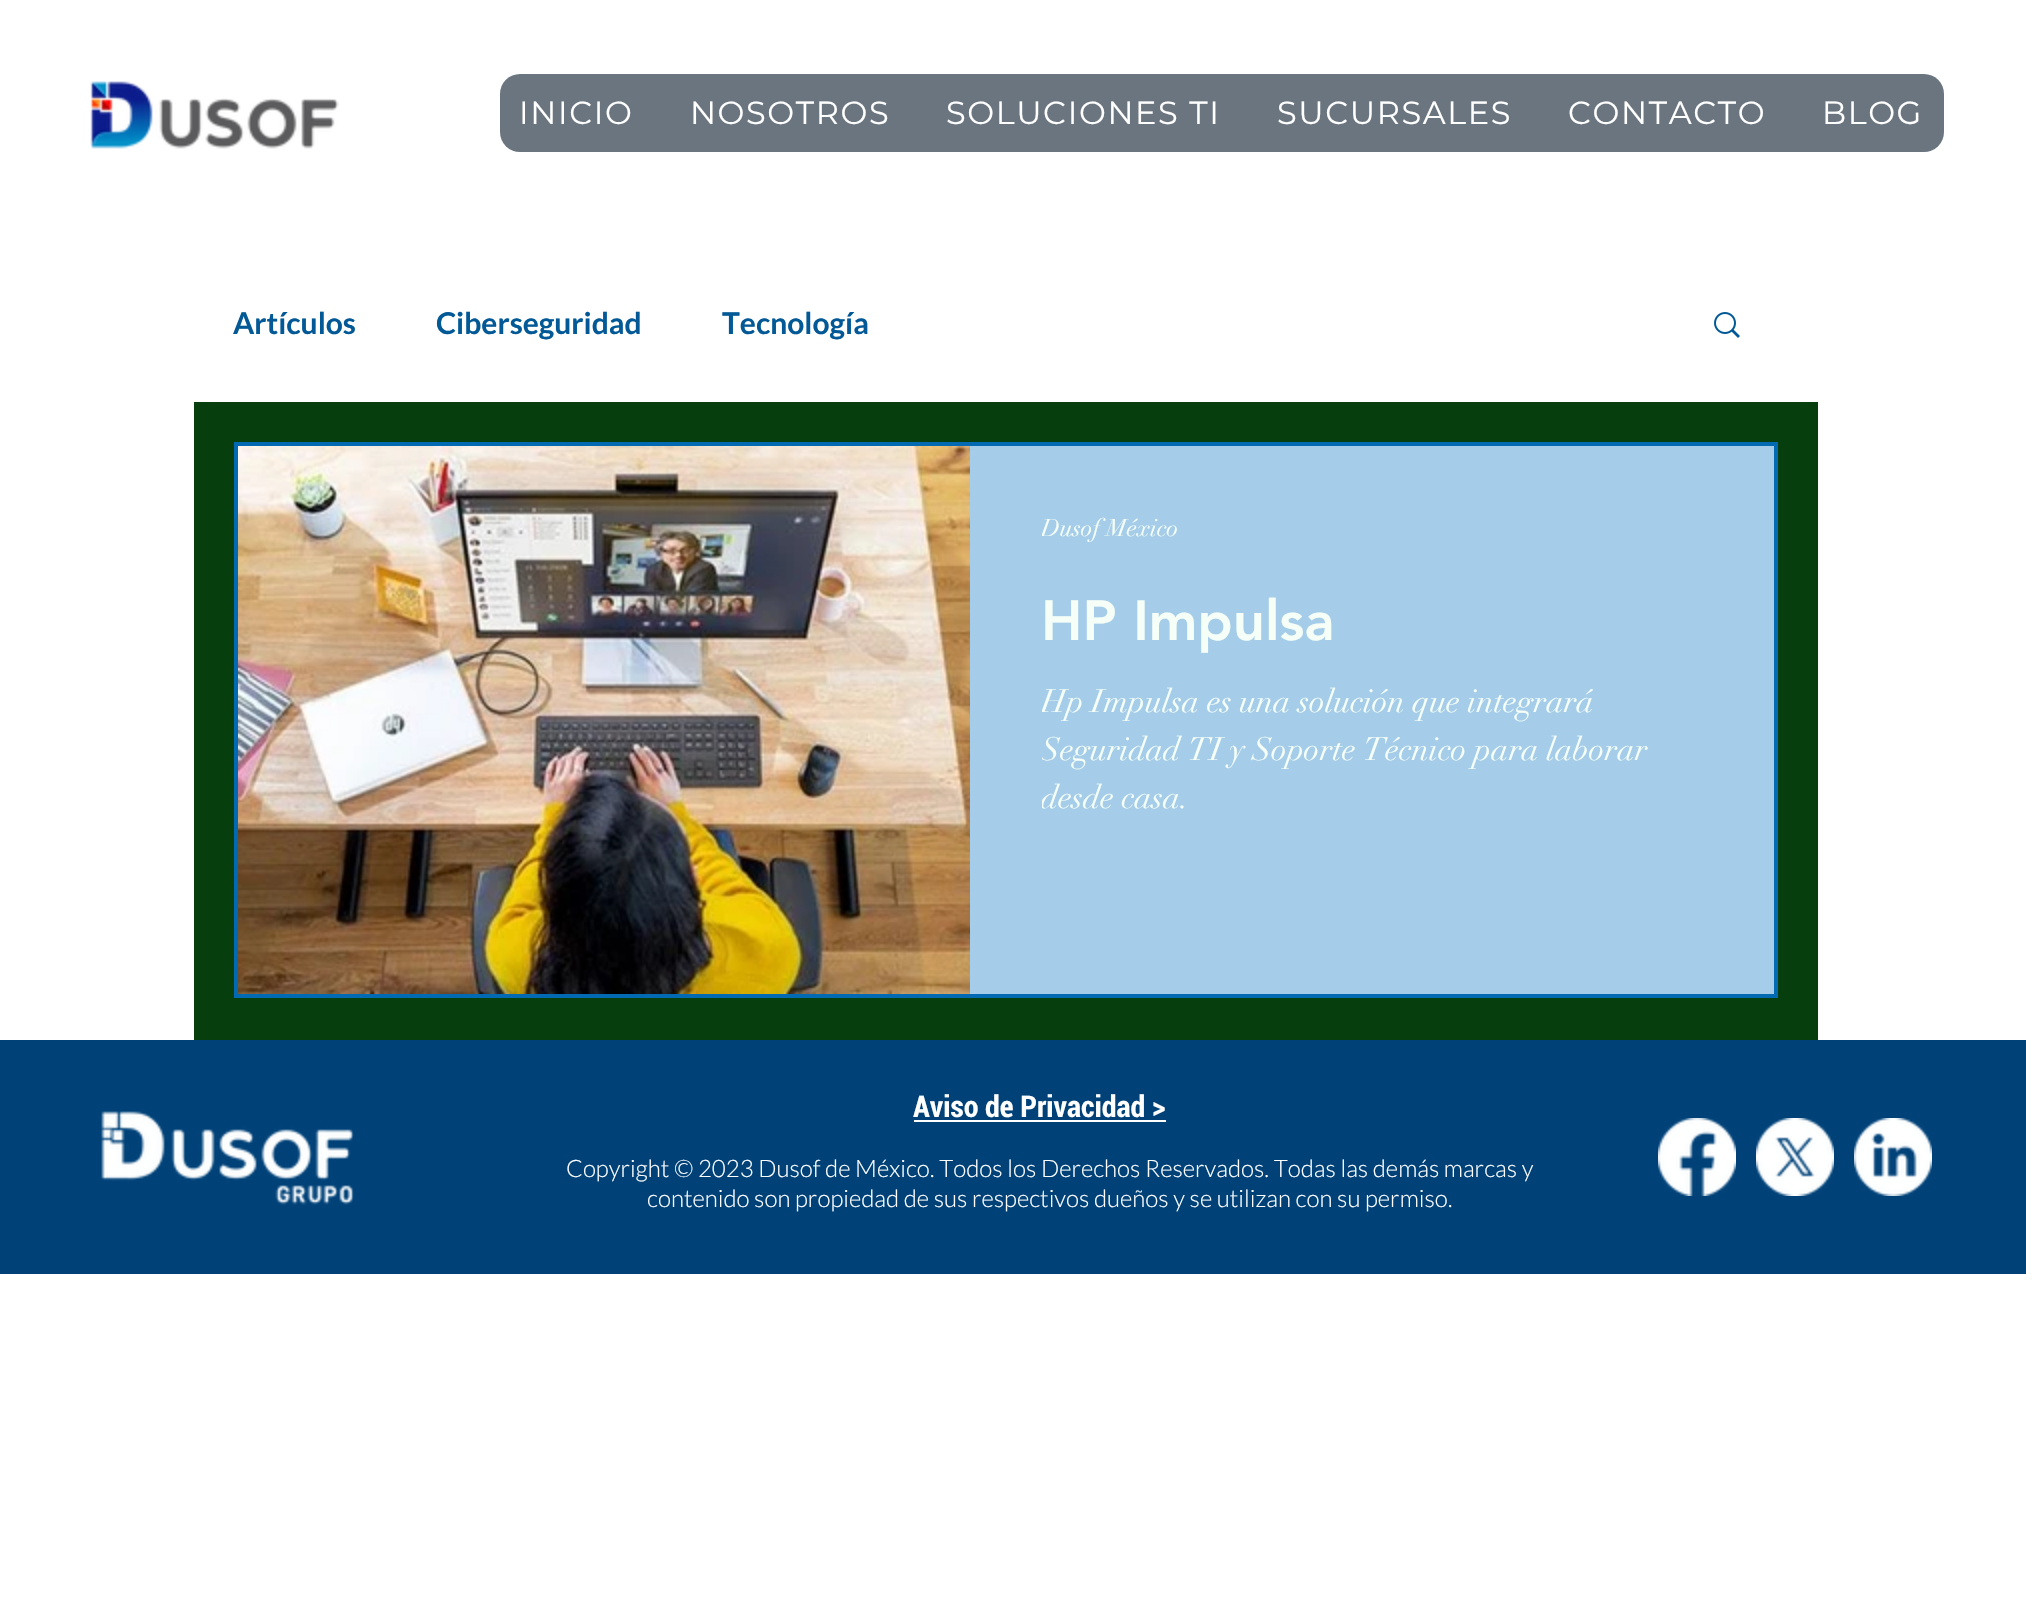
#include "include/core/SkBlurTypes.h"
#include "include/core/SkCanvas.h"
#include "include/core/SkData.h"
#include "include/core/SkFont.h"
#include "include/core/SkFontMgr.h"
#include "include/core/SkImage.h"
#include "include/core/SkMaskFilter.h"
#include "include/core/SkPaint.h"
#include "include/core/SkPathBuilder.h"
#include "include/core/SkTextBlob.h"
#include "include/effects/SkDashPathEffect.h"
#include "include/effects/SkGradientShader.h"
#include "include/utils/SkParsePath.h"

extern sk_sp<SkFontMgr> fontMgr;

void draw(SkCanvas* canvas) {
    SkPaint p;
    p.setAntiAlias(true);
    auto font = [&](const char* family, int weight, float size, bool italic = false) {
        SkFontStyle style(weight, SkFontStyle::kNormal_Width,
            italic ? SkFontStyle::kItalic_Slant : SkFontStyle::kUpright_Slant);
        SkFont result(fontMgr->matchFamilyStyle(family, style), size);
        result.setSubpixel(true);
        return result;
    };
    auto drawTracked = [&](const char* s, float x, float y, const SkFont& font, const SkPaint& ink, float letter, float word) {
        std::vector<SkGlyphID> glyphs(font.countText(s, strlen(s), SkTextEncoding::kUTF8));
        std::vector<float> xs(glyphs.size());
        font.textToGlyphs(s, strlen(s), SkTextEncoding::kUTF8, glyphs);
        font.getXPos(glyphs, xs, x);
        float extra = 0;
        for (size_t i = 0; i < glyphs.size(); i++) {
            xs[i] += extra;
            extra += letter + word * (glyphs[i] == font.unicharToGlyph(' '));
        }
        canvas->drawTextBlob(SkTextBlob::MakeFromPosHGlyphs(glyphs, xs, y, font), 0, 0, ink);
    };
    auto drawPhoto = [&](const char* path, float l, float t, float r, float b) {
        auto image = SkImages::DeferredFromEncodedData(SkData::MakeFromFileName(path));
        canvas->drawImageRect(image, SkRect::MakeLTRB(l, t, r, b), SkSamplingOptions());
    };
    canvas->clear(0xFFFFFFFF);
    drawPhoto("media/1.png", 90, 81, 339, 149);
    p.setColor(0xFF6A757F);
    canvas->drawRoundRect(SkRect::MakeLTRB(500, 74, 1944, 152), 20, 20, p);
    auto font1 = font("Montserrat", 400, 32);
    p.setColor(0xFFFFFFFF);
    {
        const struct { const char* s; float x, y; } items[] = {
            {"INICIO", 519, 124},
            {"NOSOTROS", 690, 124},
            {"SOLUCIONES TI", 946, 124},
            {"SUCURSALES", 1277, 124},
            {"CONTACTO", 1568, 124},
            {"BLOG", 1822, 124},
        };
        for (auto [s, x, y] : items) {
            drawTracked(s, x, y, font1, p, 1.6f, 0);
        }
    }
    p.setColor(0xFF063F0D);
    canvas->drawRect(SkRect::MakeLTRB(194, 402, 1818, 1040), p);
    auto font2 = font("Lato", 700, 30);
    p.setColor(0xFF035996);
    {
        const struct { const char* s; float x, y; } items[] = {
            {"Artículos", 233, 334},
            {"Ciberseguridad", 436, 334},
            {"Tecnología", 722, 334},
        };
        for (auto [s, x, y] : items) {
            canvas->drawString(s, x, y, font2, p);
        }
    }
    drawPhoto("media/2.png", 1714, 312, 1740, 338);
    p.setStyle(SkPaint::kStroke_Style);
    p.setStrokeWidth(4);
    p.setColor(0xFF0269B3);
    canvas->drawRect(SkRect::MakeLTRB(236, 444, 1776, 996), p);
    drawPhoto("media/3.png", 238, 446, 970, 994);
    p.setStyle(SkPaint::kFill_Style);
    p.setColor(0xFFA5CCE8);
    canvas->drawRect(SkRect::MakeLTRB(970, 446, 1774, 994), p);
    canvas->save();
    canvas->clipRect(SkRect::MakeLTRB(1042, 514, 1178, 542));
    auto font3 = font("didot", 400, 24);
    p.setColor(0xFFF5FFF7);
    canvas->drawString("Dusof México", 1041, 536, font3, p);
    canvas->restore();
    auto font4 = font("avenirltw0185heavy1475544", 900, 56);
    canvas->drawString("HP Impulsa", 1041, 640, font4, p);
    canvas->save();
    canvas->clipRect(SkRect::MakeLTRB(1042, 678, 1702, 822));
    auto font5 = font("didot", 400, 32);
    {
        const struct { const char* s; float x, y; } items[] = {
            {"Hp Impulsa es una solución que integrará", 1041, 712},
            {"Seguridad TI y Soporte Técnico para laborar", 1041, 760},
            {"desde casa.", 1041, 808},
        };
        for (auto [s, x, y] : items) {
            canvas->drawString(s, x, y, font5, p);
        }
    }
    canvas->restore();
    p.setColor(0xFF004178);
    canvas->drawRect(SkRect::MakeLTRB(0, 1040, 2026, 1274), p);
    auto font6 = font("Roboto", 700, 30);
    p.setColor(0xFFFFFFFF);
    canvas->drawString("Aviso de Privacidad >", 913, 1117, font6, p);
    canvas->drawRect(SkRect::MakeLTRB(914, 1120, 1166, 1122), p);
    drawPhoto("media/4.png", 101, 1111, 354, 1205);
    auto font7 = font("Lato", 300, 24);
    canvas->drawString("Copyright © 2023 Dusof de México. Todos los Derechos Reservados. Todas las demás marcas y", 566, 1177, font7, p);
    canvas->drawString("contenido son propiedad de sus respectivos dueños y se utilizan con su permiso.", 647, 1207, font7, p);
    drawPhoto("media/5.png", 1658, 1118, 1736, 1196);
    drawPhoto("media/6.png", 1756, 1118, 1834, 1196);
    drawPhoto("media/7.png", 1854, 1118, 1932, 1196);
}
